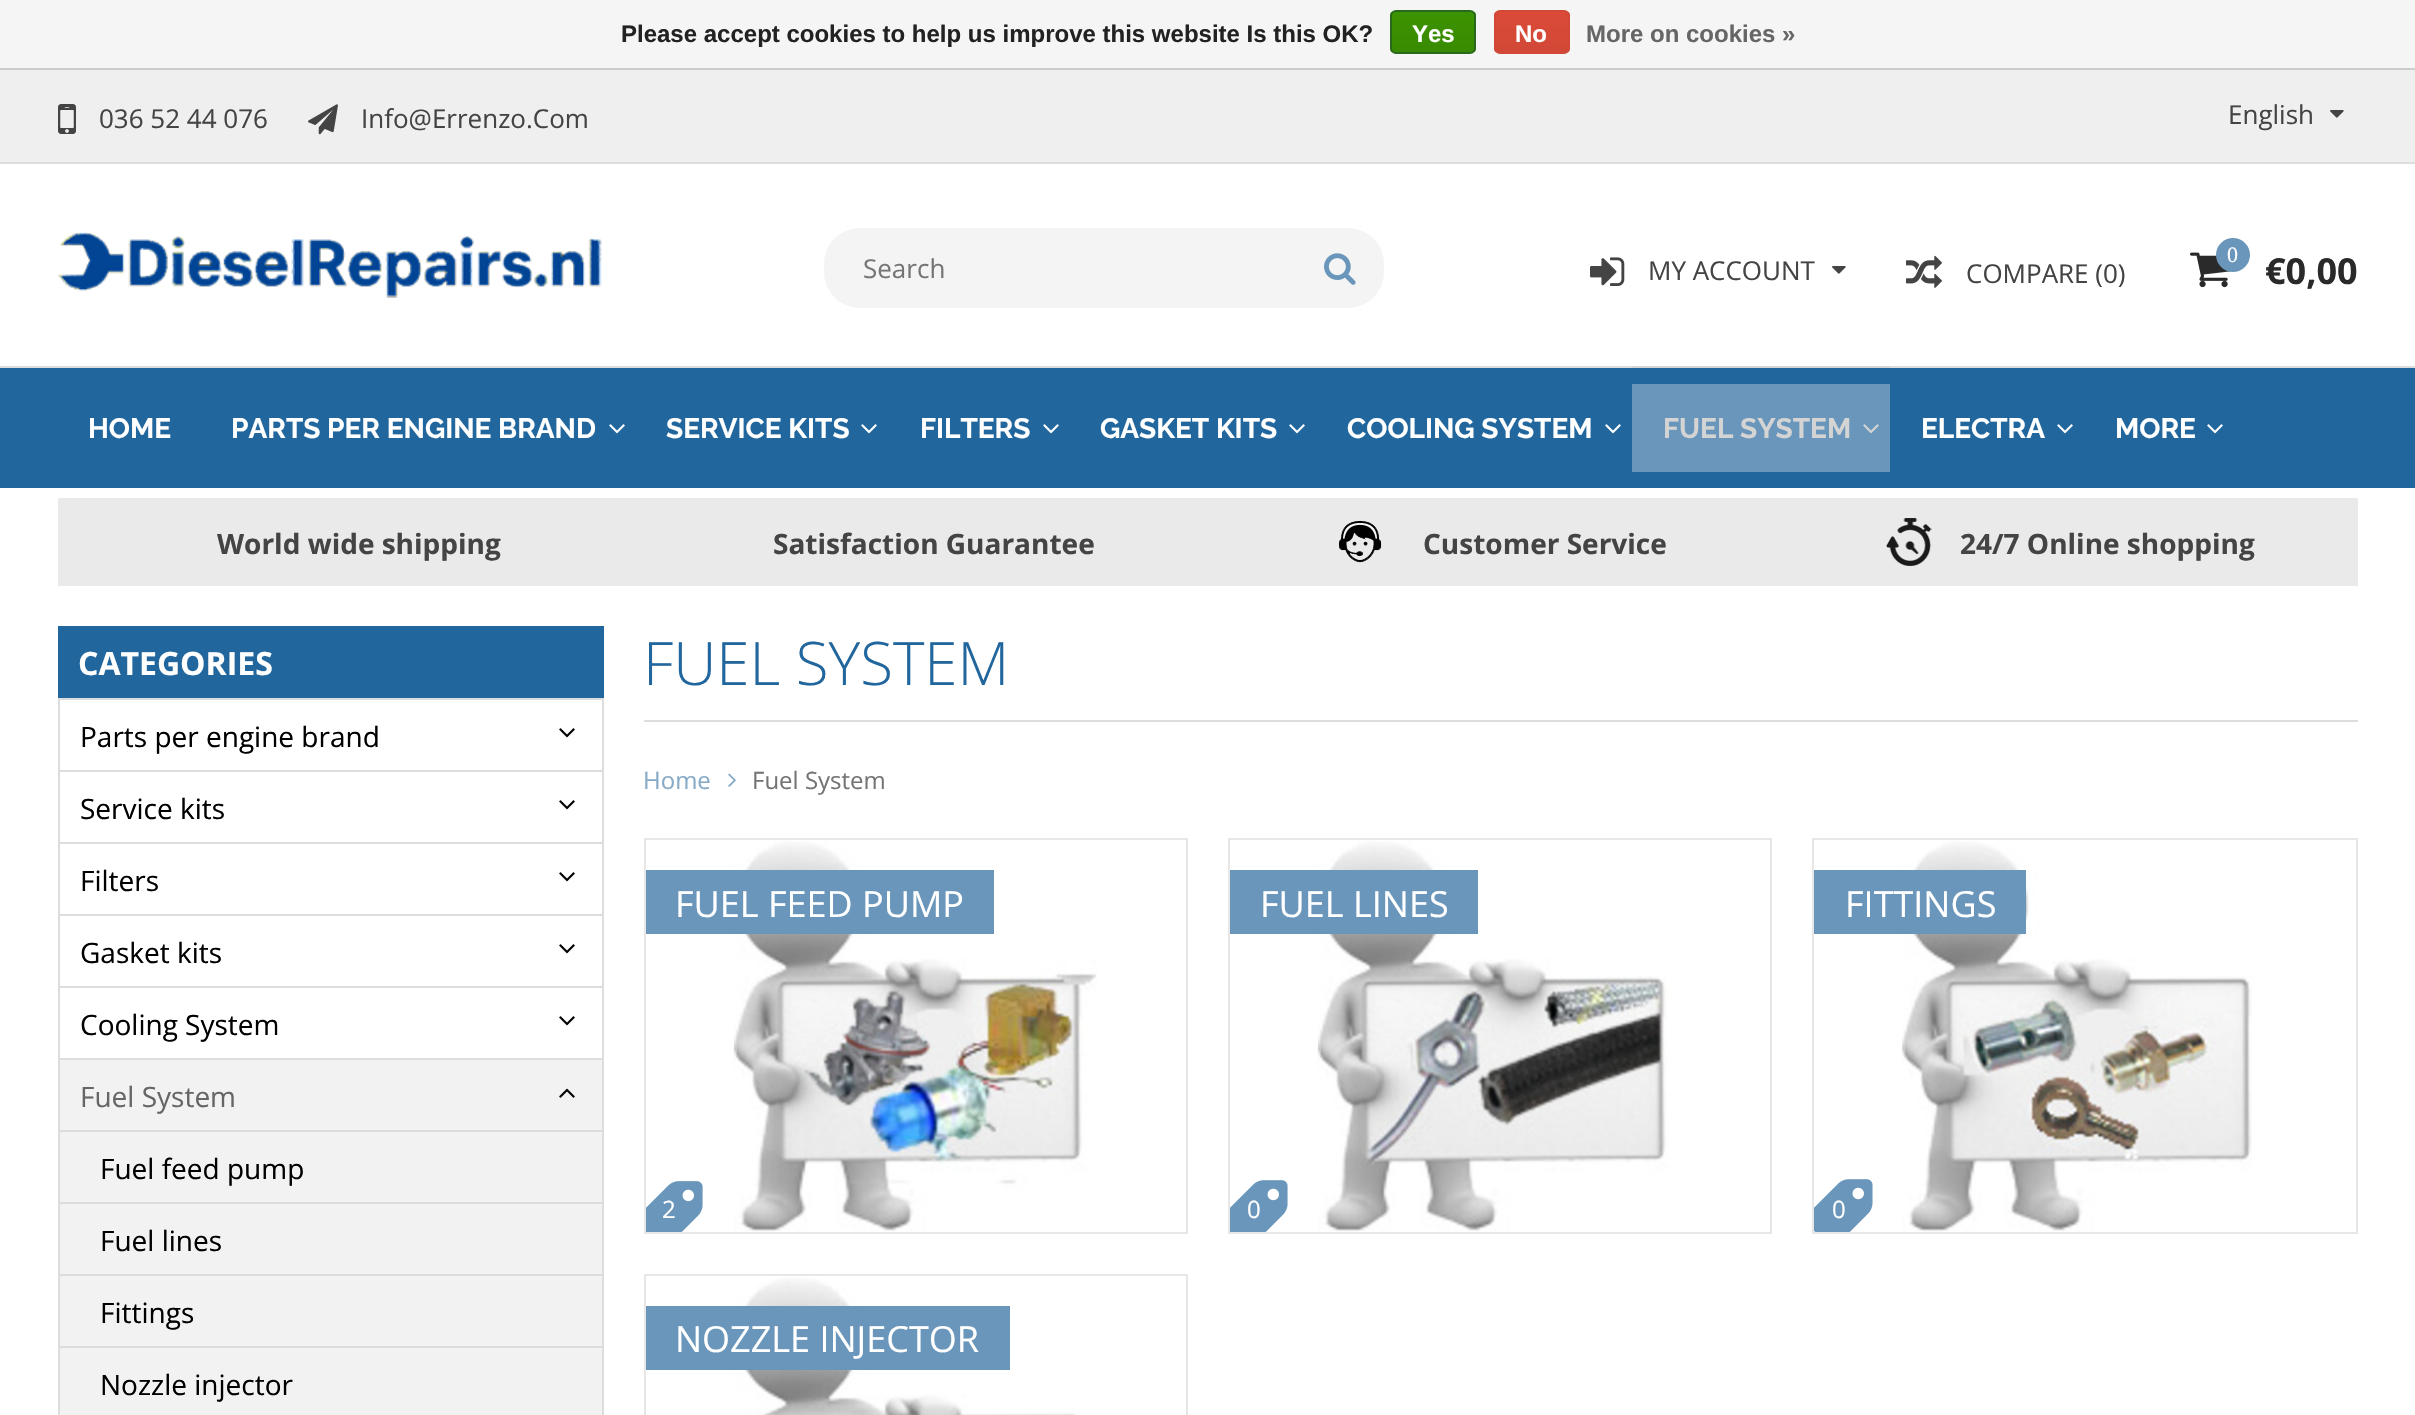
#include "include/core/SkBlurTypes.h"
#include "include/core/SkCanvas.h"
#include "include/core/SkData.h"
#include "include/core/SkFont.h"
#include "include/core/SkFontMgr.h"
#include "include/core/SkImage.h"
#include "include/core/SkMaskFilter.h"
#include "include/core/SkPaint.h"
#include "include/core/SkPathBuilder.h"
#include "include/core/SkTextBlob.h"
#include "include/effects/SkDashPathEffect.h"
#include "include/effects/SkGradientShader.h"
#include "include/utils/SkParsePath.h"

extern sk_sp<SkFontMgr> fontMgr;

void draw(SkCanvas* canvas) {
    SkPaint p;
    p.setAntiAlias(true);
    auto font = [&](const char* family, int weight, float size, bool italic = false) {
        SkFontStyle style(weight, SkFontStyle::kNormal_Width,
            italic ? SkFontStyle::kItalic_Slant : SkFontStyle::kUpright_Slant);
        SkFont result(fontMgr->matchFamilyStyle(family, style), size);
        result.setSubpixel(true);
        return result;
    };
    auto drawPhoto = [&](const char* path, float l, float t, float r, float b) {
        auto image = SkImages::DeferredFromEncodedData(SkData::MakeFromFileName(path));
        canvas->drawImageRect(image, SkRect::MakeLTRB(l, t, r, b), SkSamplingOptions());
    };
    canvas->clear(0xFFFFFFFF);
    p.setColor(0xFFF5F5F5);
    canvas->drawRect(SkRect::MakeLTRB(0, 0, 2415, 68), p);
    p.setColor(0xFFCCCCCC);
    canvas->drawRect(SkRect::MakeLTRB(0, 68, 2415, 70), p);
    auto font1 = font("Liberation Sans", 700, 24);
    p.setColor(0xFF222222);
    canvas->drawString("Please accept cookies to help us improve this website Is this OK?", 621, 42, font1, p);
    canvas->save();
    canvas->clipPath(SkPathBuilder().moveTo(1396, 10).lineTo(1470, 10).cubicTo(1473.5f, 10, 1476, 12.5f, 1476, 16).lineTo(1476, 48).cubicTo(1476, 51.5f, 1473.5f, 54, 1470, 54).lineTo(1396, 54).cubicTo(1392.5f, 54, 1390, 51.5f, 1390, 48).lineTo(1390, 16).cubicTo(1390, 12.5f, 1392.5f, 10, 1396, 10).close().detach(), true);
    {
        const SkColor colors[] = {0xFF3C9300, 0xFF398A00};
        const float stops[] = {0, 1};
        const SkPoint ends[] = {{1433, 12}, {1433, 52}};
        p.setShader(SkGradientShader::MakeLinear(ends, colors, stops, 2, SkTileMode::kClamp));
        p.setAlpha(255);
    }
    canvas->drawRect(SkRect::MakeLTRB(1390, 12, 1476, 52), p);
    canvas->restore();
    p.setStyle(SkPaint::kStroke_Style);
    p.setStrokeWidth(2);
    p.setShader(nullptr);
    p.setColor(0xFF29691D);
    canvas->drawRoundRect(SkRect::MakeLTRB(1391, 11, 1475, 53), 5, 5, p);
    p.setStyle(SkPaint::kFill_Style);
    p.setColor(0xFFFFFFFF);
    canvas->drawString("Yes", 1412, 42, font1, p);
    canvas->save();
    canvas->clipPath(SkPathBuilder().moveTo(1500, 10).lineTo(1564, 10).cubicTo(1567.5f, 10, 1570, 12.5f, 1570, 16).lineTo(1570, 48).cubicTo(1570, 51.5f, 1567.5f, 54, 1564, 54).lineTo(1500, 54).cubicTo(1496.5f, 54, 1494, 51.5f, 1494, 48).lineTo(1494, 16).cubicTo(1494, 12.5f, 1496.5f, 10, 1500, 10).close().detach(), true);
    {
        const SkColor colors[] = {0xFFDC4A38, 0xFFD14836};
        const float stops[] = {0, 1};
        const SkPoint ends[] = {{1532, 12}, {1532, 52}};
        p.setShader(SkGradientShader::MakeLinear(ends, colors, stops, 2, SkTileMode::kClamp));
        p.setAlpha(255);
    }
    canvas->drawRect(SkRect::MakeLTRB(1494, 12, 1570, 52), p);
    canvas->restore();
    p.setStyle(SkPaint::kStroke_Style);
    p.setShader(nullptr);
    p.setColor(0xFFD14836);
    canvas->drawRoundRect(SkRect::MakeLTRB(1495, 11, 1569, 53), 5, 5, p);
    p.setStyle(SkPaint::kFill_Style);
    p.setColor(0xFFFFFFFF);
    canvas->drawString("No", 1515, 42, font1, p);
    p.setColor(0xFF666666);
    canvas->drawString("More on cookies »", 1586, 42, font1, p);
    p.setColor(0xFFEFEFEF);
    canvas->drawRect(SkRect::MakeLTRB(0, 70, 2415, 162), p);
    p.setColor(0xFFDDDDDD);
    canvas->drawRect(SkRect::MakeLTRB(0, 162, 2415, 164), p);
    drawPhoto("media/1.png", 58, 104, 76, 134);
    auto font2 = font("Open Sans", 400, 26);
    p.setColor(0xFF444444);
    canvas->drawString("036 52 44 076", 99, 128, font2, p);
    drawPhoto("media/2.png", 308, 104, 338, 135);
    canvas->drawString("Info@Errenzo.Com", 361, 128, font2, p);
    canvas->drawString("English", 2228, 124, font2, p);
    drawPhoto("media/3.png", 2330, 110, 2344, 118);
    drawPhoto("media/4.png", 58, 232, 602, 298);
    p.setColor(0xFFF4F4F4);
    canvas->drawRoundRect(SkRect::MakeLTRB(824, 228, 1384, 308), 36, 36, p);
    p.setColor(0xFF757575);
    canvas->drawString("Search", 863, 278, font2, p);
    drawPhoto("media/5.png", 1324, 253, 1356, 285);
    drawPhoto("media/6.png", 1590, 257, 1625, 286);
    p.setColor(0xFF444444);
    canvas->drawString("MY ACCOUNT", 1648, 280, font2, p);
    drawPhoto("media/7.png", 1832, 266, 1846, 274);
    drawPhoto("media/8.png", 1906, 255, 1942, 288);
    canvas->drawString("COMPARE (0)", 1966, 283, font2, p);
    drawPhoto("media/9.png", 2190, 252, 2231, 288);
    p.setColor(0xFF6996BA);
    canvas->drawCircle(2233, 255, 17, p);
    auto font3 = font("Liberation Serif", 400, 22);
    p.setColor(0xFFFFFFFF);
    canvas->drawString("0", 2227, 262, font3, p);
    auto font4 = font("Open Sans", 700, 36);
    p.setColor(0xFF2A2A2A);
    canvas->drawString("€0,00", 2265, 284, font4, p);
    p.setColor(0xFF21669D);
    canvas->drawRect(SkRect::MakeLTRB(0, 368, 2415, 488), p);
    p.setColor(0xFFDDDDDD);
    canvas->drawRect(SkRect::MakeLTRB(0, 366, 2415, 368), p);
    auto font5 = font("Raleway", 700, 28);
    p.setColor(0xFFFFFFFF);
    canvas->drawString("HOME", 88, 438, font5, p);
    canvas->drawString("PARTS PER ENGINE BRAND", 231, 438, font5, p);
    drawPhoto("media/10.png", 609, 424, 625, 434);
    canvas->drawString("SERVICE KITS", 666, 438, font5, p);
    drawPhoto("media/10.png", 861, 424, 877, 434);
    canvas->drawString("FILTERS", 920, 438, font5, p);
    drawPhoto("media/10.png", 1043, 424, 1059, 434);
    canvas->drawString("GASKET KITS", 1100, 438, font5, p);
    drawPhoto("media/10.png", 1289, 424, 1305, 434);
    canvas->drawString("COOLING SYSTEM", 1347, 438, font5, p);
    drawPhoto("media/10.png", 1605, 424, 1621, 434);
    p.setColor(0xFF6996BA);
    canvas->drawRect(SkRect::MakeLTRB(1632, 384, 1890, 472), p);
    p.setColor(0xFFD4D4D4);
    canvas->drawRect(SkRect::MakeLTRB(1632, 366, 1890, 368), p);
    canvas->drawString("FUEL SYSTEM", 1663, 438, font5, p);
    drawPhoto("media/11.png", 1863, 424, 1879, 434);
    p.setColor(0xFFFFFFFF);
    canvas->drawString("ELECTRA", 1921, 438, font5, p);
    drawPhoto("media/10.png", 2057, 424, 2073, 434);
    canvas->drawString("MORE", 2115, 438, font5, p);
    drawPhoto("media/10.png", 2207, 424, 2223, 434);
    p.setColor(0xFFEAEAEA);
    canvas->drawRect(SkRect::MakeLTRB(58, 498, 2358, 586), p);
    auto font6 = font("Open Sans", 700, 28);
    p.setColor(0xFF444444);
    canvas->drawString("World wide shipping", 217, 554, font6, p);
    canvas->drawString("Satisfaction Guarantee", 773, 554, font6, p);
    drawPhoto("media/12.png", 1339, 520, 1382, 563);
    canvas->drawString("Customer Service", 1423, 554, font6, p);
    drawPhoto("media/13.png", 1886, 518, 1932, 566);
    canvas->drawString("24/7 Online shopping", 1960, 554, font6, p);
    p.setColor(0xFF21669D);
    canvas->drawRect(SkRect::MakeLTRB(58, 626, 604, 698), p);
    auto font7 = font("Open Sans", 700, 32);
    p.setColor(0xFFFFFFFF);
    canvas->drawString("CATEGORIES", 78, 675, font7, p);
    p.setStyle(SkPaint::kStroke_Style);
    p.setColor(0xFFDDDDDD);
    canvas->drawRect(SkRect::MakeLTRB(59, 699, 603, 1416), p);
    p.setStyle(SkPaint::kFill_Style);
    canvas->drawRect(SkRect::MakeLTRB(60, 770, 602, 772), p);
    auto font8 = font("Open Sans", 400, 28);
    p.setColor(0xFF000000);
    canvas->drawString("Parts per engine brand", 80, 747, font8, p);
    drawPhoto("media/14.png", 559, 728, 575, 738);
    p.setColor(0xFFDDDDDD);
    canvas->drawRect(SkRect::MakeLTRB(60, 842, 602, 844), p);
    p.setColor(0xFF000000);
    canvas->drawString("Service kits", 80, 819, font8, p);
    drawPhoto("media/14.png", 559, 800, 575, 810);
    p.setColor(0xFFDDDDDD);
    canvas->drawRect(SkRect::MakeLTRB(60, 914, 602, 916), p);
    p.setColor(0xFF000000);
    canvas->drawString("Filters", 80, 891, font8, p);
    drawPhoto("media/14.png", 559, 872, 575, 882);
    p.setColor(0xFFDDDDDD);
    canvas->drawRect(SkRect::MakeLTRB(60, 986, 602, 988), p);
    p.setColor(0xFF000000);
    canvas->drawString("Gasket kits", 80, 963, font8, p);
    drawPhoto("media/14.png", 559, 944, 575, 954);
    p.setColor(0xFFDDDDDD);
    canvas->drawRect(SkRect::MakeLTRB(60, 1058, 602, 1060), p);
    p.setColor(0xFF000000);
    canvas->drawString("Cooling System", 80, 1035, font8, p);
    drawPhoto("media/14.png", 559, 1016, 575, 1026);
    p.setColor(0xFFF2F2F2);
    canvas->drawRect(SkRect::MakeLTRB(60, 1060, 602, 1130), p);
    p.setColor(0xFFDDDDDD);
    canvas->drawRect(SkRect::MakeLTRB(60, 1130, 602, 1132), p);
    p.setColor(0xFF666666);
    canvas->drawString("Fuel System", 80, 1107, font8, p);
    drawPhoto("media/15.png", 559, 1088, 575, 1098);
    p.setColor(0xFFF2F2F2);
    canvas->drawRect(SkRect::MakeLTRB(60, 1132, 602, 1415), p);
    p.setColor(0xFFDDDDDD);
    canvas->drawRect(SkRect::MakeLTRB(60, 1202, 602, 1204), p);
    p.setColor(0xFF000000);
    canvas->drawString("Fuel feed pump", 100, 1179, font8, p);
    p.setColor(0xFFDDDDDD);
    canvas->drawRect(SkRect::MakeLTRB(60, 1274, 602, 1276), p);
    p.setColor(0xFF000000);
    canvas->drawString("Fuel lines", 100, 1251, font8, p);
    p.setColor(0xFFDDDDDD);
    canvas->drawRect(SkRect::MakeLTRB(60, 1346, 602, 1348), p);
    p.setColor(0xFF000000);
    canvas->drawString("Fittings", 100, 1323, font8, p);
    canvas->drawString("Nozzle injector", 100, 1395, font8, p);
    p.setColor(0xFFDDDDDD);
    canvas->drawRect(SkRect::MakeLTRB(644, 720, 2358, 722), p);
    auto font9 = font("Open Sans", 300, 60);
    p.setColor(0xFF21669D);
    canvas->drawString("FUEL SYSTEM", 643, 685, font9, p);
    auto font10 = font("Open Sans", 400, 24);
    p.setColor(0xFF87ABC7);
    canvas->drawString("Home", 643, 789, font10, p);
    drawPhoto("media/16.png", 728, 773, 736, 787);
    p.setColor(0xFF757575);
    canvas->drawString("Fuel System", 752, 789, font10, p);
    p.setStyle(SkPaint::kStroke_Style);
    p.setColor(0xFFE7E7E7);
    canvas->drawRect(SkRect::MakeLTRB(645, 839, 1187, 1233), p);
    drawPhoto("media/17.png", 733, 841, 1097, 1232);
    p.setStyle(SkPaint::kFill_Style);
    p.setColor(0xFF6996BA);
    canvas->drawRect(SkRect::MakeLTRB(646, 870, 994, 934), p);
    auto font11 = font("Open Sans", 400, 36);
    p.setColor(0xFFFFFFFF);
    canvas->drawString("FUEL FEED PUMP", 675, 917, font11, p);
    drawPhoto("media/18.png", 646, 1181, 703, 1232);
    canvas->drawString("2", 662, 1218, font10, p);
    p.setStyle(SkPaint::kStroke_Style);
    p.setColor(0xFFE7E7E7);
    canvas->drawRect(SkRect::MakeLTRB(1229, 839, 1771, 1233), p);
    drawPhoto("media/19.png", 1317, 841, 1669, 1232);
    p.setStyle(SkPaint::kFill_Style);
    p.setColor(0xFF6996BA);
    canvas->drawRect(SkRect::MakeLTRB(1230, 870, 1478, 934), p);
    p.setColor(0xFFFFFFFF);
    canvas->drawString("FUEL LINES", 1260, 917, font11, p);
    drawPhoto("media/20.png", 1230, 1180, 1288, 1232);
    canvas->drawString("0", 1247, 1218, font10, p);
    p.setStyle(SkPaint::kStroke_Style);
    p.setColor(0xFFE7E7E7);
    canvas->drawRect(SkRect::MakeLTRB(1813, 839, 2357, 1233), p);
    drawPhoto("media/21.png", 1902, 841, 2252, 1232);
    p.setStyle(SkPaint::kFill_Style);
    p.setColor(0xFF6996BA);
    canvas->drawRect(SkRect::MakeLTRB(1814, 870, 2026, 934), p);
    p.setColor(0xFFFFFFFF);
    canvas->drawString("FITTINGS", 1845, 917, font11, p);
    drawPhoto("media/22.png", 1814, 1179, 1873, 1232);
    canvas->drawString("0", 1832, 1218, font10, p);
    p.setStyle(SkPaint::kStroke_Style);
    p.setColor(0xFFE7E7E7);
    canvas->drawRect(SkRect::MakeLTRB(645, 1275, 1187, 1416), p);
    drawPhoto("media/23.png", 735, 1277, 1077, 1415);
    p.setStyle(SkPaint::kFill_Style);
    p.setColor(0xFF6996BA);
    canvas->drawRect(SkRect::MakeLTRB(646, 1306, 1010, 1370), p);
    p.setColor(0xFFFFFFFF);
    canvas->drawString("NOZZLE INJECTOR", 675, 1352, font11, p);
}
